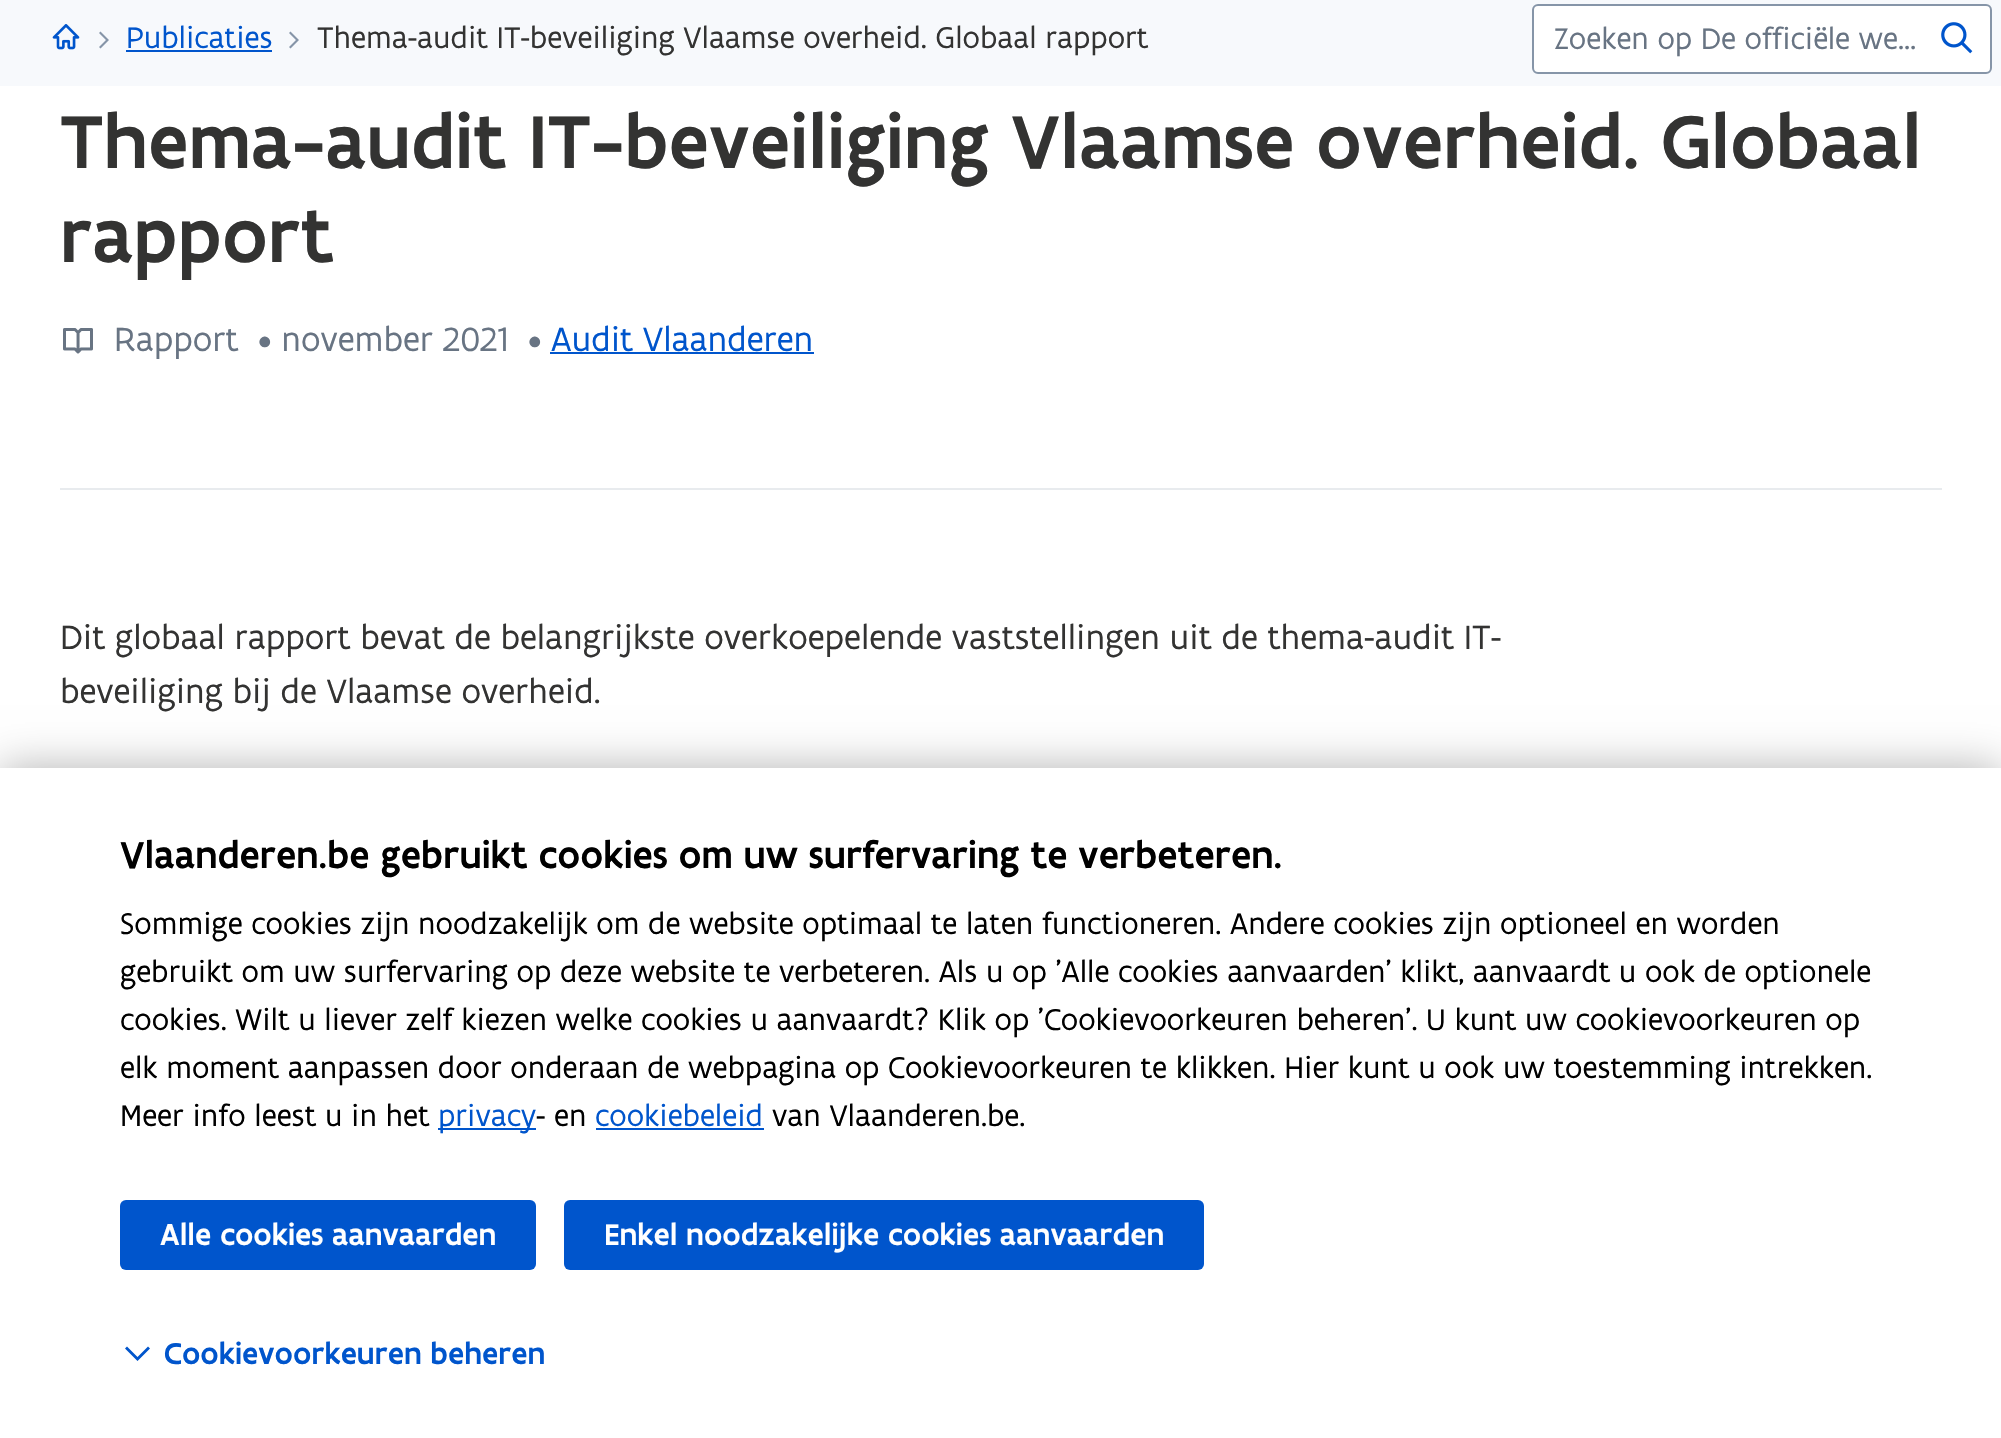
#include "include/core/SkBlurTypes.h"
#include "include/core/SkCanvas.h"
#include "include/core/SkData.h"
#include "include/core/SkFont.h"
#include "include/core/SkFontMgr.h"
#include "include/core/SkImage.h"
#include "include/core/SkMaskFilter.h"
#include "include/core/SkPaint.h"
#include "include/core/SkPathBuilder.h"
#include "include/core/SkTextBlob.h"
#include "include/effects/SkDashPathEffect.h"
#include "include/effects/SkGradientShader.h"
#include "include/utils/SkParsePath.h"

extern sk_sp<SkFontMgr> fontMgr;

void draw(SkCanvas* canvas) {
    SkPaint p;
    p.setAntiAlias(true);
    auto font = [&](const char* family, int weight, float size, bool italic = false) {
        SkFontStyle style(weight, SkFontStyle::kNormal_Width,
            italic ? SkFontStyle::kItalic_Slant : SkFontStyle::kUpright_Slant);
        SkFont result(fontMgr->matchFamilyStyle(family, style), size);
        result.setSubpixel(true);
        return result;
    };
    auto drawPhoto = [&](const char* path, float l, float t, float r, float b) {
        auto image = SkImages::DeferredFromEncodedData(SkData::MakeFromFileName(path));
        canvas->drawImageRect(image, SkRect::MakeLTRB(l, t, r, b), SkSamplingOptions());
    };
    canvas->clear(0xFFFFFFFF);
    p.setColor(0xFFF7F9FC);
    canvas->drawRect(SkRect::MakeLTRB(0, 0, 2001, 86), p);
    drawPhoto("media/1.png", 52, 24, 80, 50);
    p.setColor(0xFF8695A8);
    canvas->drawPath(SkPathBuilder().moveTo(100.5f, 48.5f).lineTo(99, 47).lineTo(106, 40).lineTo(99, 33).lineTo(100.5f, 31.5f).lineTo(109, 40).close().detach(), p);
    auto font1 = font("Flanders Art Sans", 400, 32);
    p.setColor(0xFF0055CC);
    canvas->drawString("Publicaties", 126, 48, font1, p);
    canvas->drawRect(SkRect::MakeLTRB(126, 50, 272, 52), p);
    p.setColor(0xFF8695A8);
    canvas->drawPath(SkPathBuilder().moveTo(290.5f, 48.5f).lineTo(289, 47).lineTo(296, 40).lineTo(289, 33).lineTo(290.5f, 31.5f).lineTo(299, 40).close().detach(), p);
    p.setColor(0xFF333332);
    canvas->drawString("Thema-audit IT-beveiliging Vlaamse overheid. Globaal rapport", 317, 48, font1, p);
    p.setColor(0xFFFFFFFF);
    canvas->drawRoundRect(SkRect::MakeLTRB(1533, 5, 1991, 73), 5, 5, p);
    p.setStyle(SkPaint::kStroke_Style);
    p.setStrokeWidth(2);
    p.setColor(0xFF8695A8);
    canvas->drawRoundRect(SkRect::MakeLTRB(1533, 5, 1991, 73), 5, 5, p);
    p.setStyle(SkPaint::kFill_Style);
    p.setColor(0xFF687483);
    canvas->drawString("Zoeken op De officiële we…", 1554, 49, font1, p);
    drawPhoto("media/2.png", 1941, 22, 1973, 54);
    p.setColor(0xFFE8EBEE);
    canvas->drawRect(SkRect::MakeLTRB(60, 488, 1942, 490), p);
    auto font2 = font("Flanders Art Sans", 500, 80);
    p.setColor(0xFF333332);
    canvas->drawString("Thema-audit IT-beveiliging Vlaamse overheid. Globaal", 60, 168, font2, p);
    canvas->drawString("rapport", 60, 262, font2, p);
    drawPhoto("media/3.png", 63, 328, 93, 354);
    auto font3 = font("Flanders Art Sans", 400, 36);
    p.setColor(0xFF687483);
    {
        const struct { const char* s; float x, y; } items[] = {
            {"Rapport", 114, 351},
            {"• november 2021", 258, 351},
            {"•", 528, 351},
        };
        for (auto [s, x, y] : items) {
            canvas->drawString(s, x, y, font3, p);
        }
    }
    p.setColor(0xFF0055CC);
    canvas->drawString("Audit Vlaanderen", 551, 351, font3, p);
    canvas->drawRect(SkRect::MakeLTRB(550, 352, 814, 354), p);
    p.setColor(0xFF333332);
    canvas->drawString("Dit globaal rapport bevat de belangrijkste overkoepelende vaststellingen uit de thema-audit IT-", 60, 649, font3, p);
    canvas->drawString("beveiliging bij de Vlaamse overheid.", 60, 703, font3, p);
    p.setColor(0x4D000000);
    p.setMaskFilter(SkMaskFilter::MakeBlur(kNormal_SkBlurStyle, 21));
    canvas->drawRect(SkRect::MakeLTRB(0, 768, 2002, 1438), p);
    p.setMaskFilter(nullptr);
    p.setColor(0xFFFFFFFF);
    canvas->drawRect(SkRect::MakeLTRB(0, 768, 2001, 1438), p);
    auto font4 = font("Flanders Art Sans", 500, 40);
    p.setColor(0xFF000000);
    canvas->drawString("Vlaanderen.be gebruikt cookies om uw surfervaring te verbeteren.", 120, 868, font4, p);
    {
        const struct { const char* s; float x, y; } items[] = {
            {"Sommige cookies zijn noodzakelijk om de website optimaal te laten functioneren. Andere cookies zijn optioneel en worden", 120, 934},
            {"gebruikt om uw surfervaring op deze website te verbeteren. Als u op 'Alle cookies aanvaarden' klikt, aanvaardt u ook de optionele", 120, 982},
            {"cookies. Wilt u liever zelf kiezen welke cookies u aanvaardt? Klik op 'Cookievoorkeuren beheren'. U kunt uw cookievoorkeuren op", 120, 1030},
            {"elk moment aanpassen door onderaan de webpagina op Cookievoorkeuren te klikken. Hier kunt u ook uw toestemming intrekken.", 120, 1078},
            {"Meer info leest u in het", 120, 1126},
        };
        for (auto [s, x, y] : items) {
            canvas->drawString(s, x, y, font1, p);
        }
    }
    p.setColor(0xFF0055CC);
    canvas->drawRect(SkRect::MakeLTRB(438, 1128, 536, 1130), p);
    canvas->drawString("privacy", 438, 1126, font1, p);
    p.setColor(0xFF000000);
    canvas->drawString("- en", 536, 1126, font1, p);
    p.setColor(0xFF0055CC);
    canvas->drawString("cookiebeleid", 595, 1126, font1, p);
    canvas->drawRect(SkRect::MakeLTRB(596, 1128, 764, 1130), p);
    p.setColor(0xFF000000);
    canvas->drawString("van Vlaanderen.be.", 772, 1126, font1, p);
    p.setColor(0xFF0055CC);
    canvas->drawRoundRect(SkRect::MakeLTRB(120, 1200, 536, 1270), 6, 6, p);
    auto font5 = font("Flanders Art Sans", 500, 32);
    p.setColor(0xFFFFFFFF);
    canvas->drawString("Alle cookies aanvaarden", 160, 1245, font5, p);
    p.setColor(0xFF0055CC);
    canvas->drawRoundRect(SkRect::MakeLTRB(564, 1200, 1204, 1270), 6, 6, p);
    p.setColor(0xFFFFFFFF);
    canvas->drawString("Enkel noodzakelijke cookies aanvaarden", 604, 1245, font5, p);
    p.setColor(0xFF0055CC);
    canvas->drawPath(SkPathBuilder().moveTo(125, 1348.5f).lineTo(127, 1346.5f).lineTo(137.5f, 1357).lineTo(148, 1346.5f).lineTo(150, 1348.5f).lineTo(137.5f, 1361).close().detach(), p);
    canvas->drawString("Cookievoorkeuren beheren", 164, 1364, font5, p);
}
